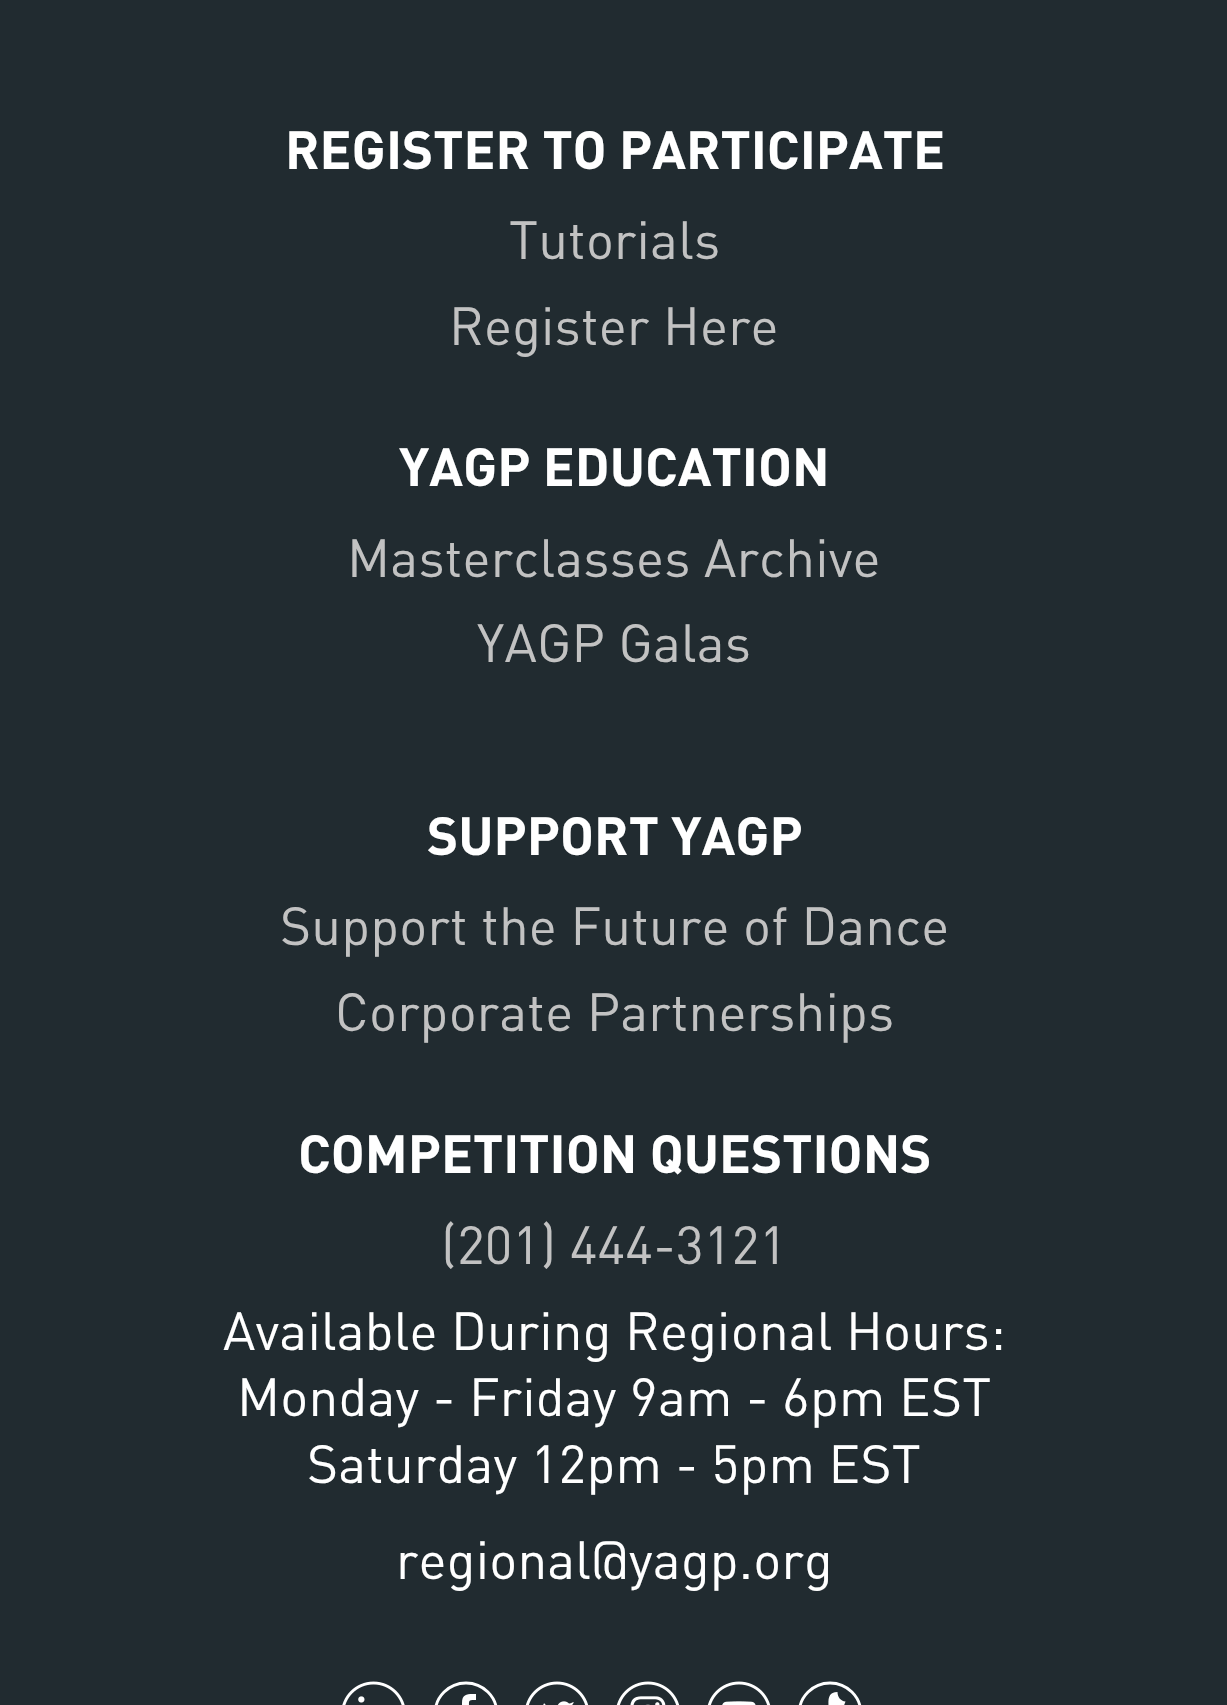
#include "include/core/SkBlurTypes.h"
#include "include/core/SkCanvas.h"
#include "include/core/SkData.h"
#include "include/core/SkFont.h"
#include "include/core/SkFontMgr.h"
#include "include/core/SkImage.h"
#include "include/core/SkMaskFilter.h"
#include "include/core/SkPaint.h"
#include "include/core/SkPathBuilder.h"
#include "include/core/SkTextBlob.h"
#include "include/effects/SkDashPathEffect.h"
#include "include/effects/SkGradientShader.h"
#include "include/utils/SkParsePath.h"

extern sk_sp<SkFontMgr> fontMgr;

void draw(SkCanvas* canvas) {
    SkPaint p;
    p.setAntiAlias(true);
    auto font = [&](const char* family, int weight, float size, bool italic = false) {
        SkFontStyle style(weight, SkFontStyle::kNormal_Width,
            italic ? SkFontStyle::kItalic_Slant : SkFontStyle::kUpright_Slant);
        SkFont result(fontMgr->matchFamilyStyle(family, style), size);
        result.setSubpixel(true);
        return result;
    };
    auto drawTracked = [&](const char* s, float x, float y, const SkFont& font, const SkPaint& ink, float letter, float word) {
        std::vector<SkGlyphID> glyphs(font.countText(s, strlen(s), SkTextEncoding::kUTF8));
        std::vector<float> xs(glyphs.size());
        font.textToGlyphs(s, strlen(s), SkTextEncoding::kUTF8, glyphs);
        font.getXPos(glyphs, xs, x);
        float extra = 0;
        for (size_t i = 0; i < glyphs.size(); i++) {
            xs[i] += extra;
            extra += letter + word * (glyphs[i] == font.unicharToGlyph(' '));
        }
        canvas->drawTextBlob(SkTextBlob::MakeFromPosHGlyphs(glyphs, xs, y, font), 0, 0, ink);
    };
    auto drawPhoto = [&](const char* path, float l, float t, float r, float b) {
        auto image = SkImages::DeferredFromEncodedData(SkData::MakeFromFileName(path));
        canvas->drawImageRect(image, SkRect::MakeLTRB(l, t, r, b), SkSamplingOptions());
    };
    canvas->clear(0xFF212B30);
    auto font1 = font("DIN", 700, 52.9f);
    p.setColor(0xFFFFFFFF);
    canvas->drawString("REGISTER TO PARTICIPATE", 285, 169, font1, p);
    auto font2 = font("DIN", 400, 52.9f);
    p.setColor(0xFFC2C2C2);
    drawTracked("Tutorials", 509, 259, font2, p, 0.2f, 0);
    drawTracked("Register Here", 449, 345, font2, p, 0.2f, 0);
    p.setColor(0xFFFFFFFF);
    canvas->drawString("YAGP EDUCATION", 399, 486, font1, p);
    p.setColor(0xFFC2C2C2);
    drawTracked("Masterclasses Archive", 347, 577, font2, p, 0.2f, 0);
    drawTracked("YAGP Galas", 477, 662, font2, p, 0.2f, 0);
    p.setColor(0xFFFFFFFF);
    canvas->drawString("SUPPORT YAGP", 427, 855, font1, p);
    p.setColor(0xFFC2C2C2);
    drawTracked("Support the Future of Dance", 280, 945, font2, p, 0.2f, 0);
    drawTracked("Corporate Partnerships", 335, 1031, font2, p, 0.2f, 0);
    p.setColor(0xFFFFFFFF);
    canvas->drawString("COMPETITION QUESTIONS", 298, 1173, font1, p);
    p.setColor(0xFFC2C2C2);
    drawTracked("(201) 444-3121", 441, 1264, font2, p, 0.2f, 0);
    p.setColor(0xFFFFFFFF);
    {
        const struct { const char* s; float x, y; } items[] = {
            {"Available During Regional Hours:", 223, 1350},
            {"Monday - Friday 9am - 6pm EST", 237, 1416},
            {"Saturday 12pm - 5pm EST", 307, 1483},
            {"regional@yagp.org", 396, 1579},
        };
        for (auto [s, x, y] : items) {
            drawTracked(s, x, y, font2, p, 0.2f, 0);
        }
    }
    drawPhoto("media/1.png", 342, 1681, 405, 1705);
    canvas->drawPath(SkPathBuilder().moveTo(462, 1703).lineTo(462, 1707.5f).lineTo(456, 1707.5f).lineTo(456, 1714.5f).lineTo(462, 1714.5f).lineTo(462, 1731).lineTo(469, 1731).lineTo(469, 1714).lineTo(476, 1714).lineTo(476, 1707.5f).lineTo(469, 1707.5f).cubicTo(469, 1700.5f, 468, 1700, 476, 1700).lineTo(476, 1694).cubicTo(468.5f, 1694, 462, 1693, 462, 1703).close().detach(), p);
    p.setStyle(SkPaint::kStroke_Style);
    p.setStrokeWidth(2.9f);
    canvas->drawCircle(466, 1714, 31, p);
    drawPhoto("media/2.png", 525, 1681, 589, 1705);
    drawPhoto("media/3.png", 616, 1681, 680, 1705);
    drawPhoto("media/4.png", 707, 1681, 771, 1705);
    canvas->drawCircle(830, 1714, 31, p);
    p.setStyle(SkPaint::kFill_Style);
    canvas->drawPath(SkPathBuilder().moveTo(845.5f, 1701.5f).cubicTo(840.5f, 1701, 837.5f, 1697, 837.5f, 1692).cubicTo(827, 1692, 828.5f, 1701, 828.5f, 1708.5f).cubicTo(826, 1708, 824, 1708.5f, 822, 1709.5f).cubicTo(812, 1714.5f, 818, 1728.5f, 828.5f, 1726).cubicTo(837, 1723.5f, 835.5f, 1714.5f, 835.5f, 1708).cubicTo(838, 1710, 841, 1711, 844, 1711).lineTo(844, 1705.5f).close().detach(), p);
}
